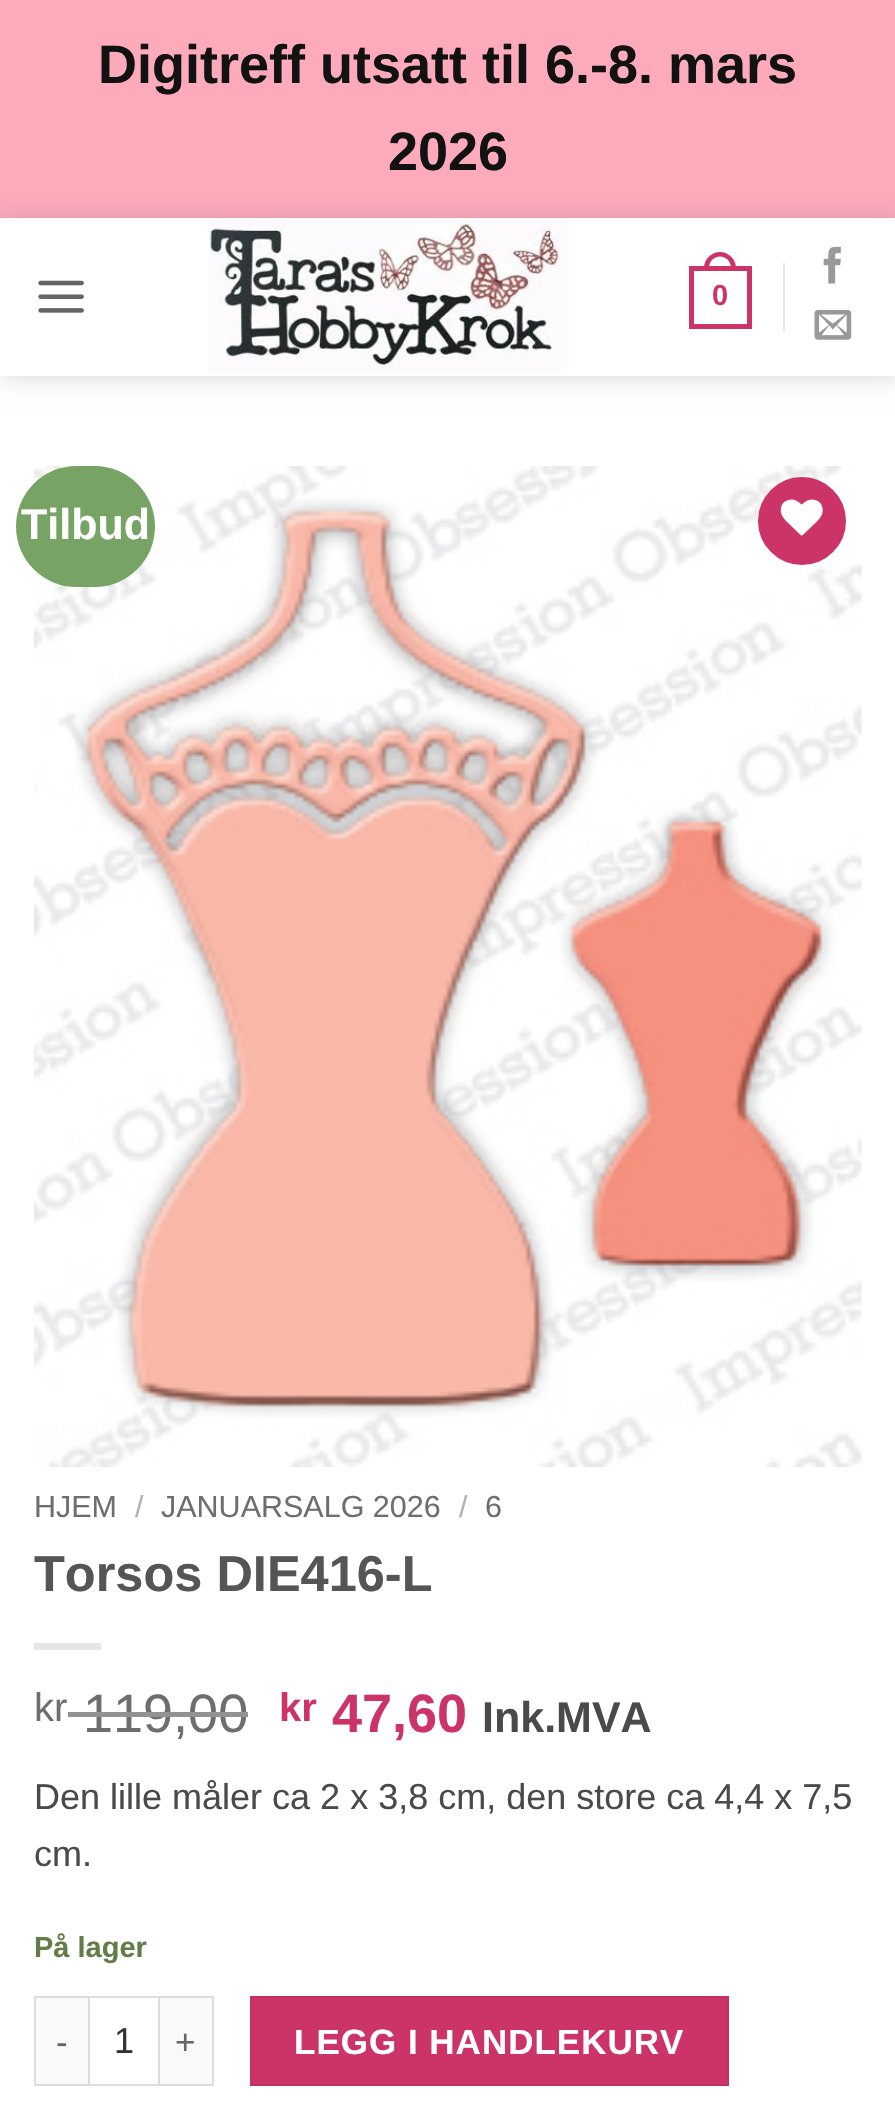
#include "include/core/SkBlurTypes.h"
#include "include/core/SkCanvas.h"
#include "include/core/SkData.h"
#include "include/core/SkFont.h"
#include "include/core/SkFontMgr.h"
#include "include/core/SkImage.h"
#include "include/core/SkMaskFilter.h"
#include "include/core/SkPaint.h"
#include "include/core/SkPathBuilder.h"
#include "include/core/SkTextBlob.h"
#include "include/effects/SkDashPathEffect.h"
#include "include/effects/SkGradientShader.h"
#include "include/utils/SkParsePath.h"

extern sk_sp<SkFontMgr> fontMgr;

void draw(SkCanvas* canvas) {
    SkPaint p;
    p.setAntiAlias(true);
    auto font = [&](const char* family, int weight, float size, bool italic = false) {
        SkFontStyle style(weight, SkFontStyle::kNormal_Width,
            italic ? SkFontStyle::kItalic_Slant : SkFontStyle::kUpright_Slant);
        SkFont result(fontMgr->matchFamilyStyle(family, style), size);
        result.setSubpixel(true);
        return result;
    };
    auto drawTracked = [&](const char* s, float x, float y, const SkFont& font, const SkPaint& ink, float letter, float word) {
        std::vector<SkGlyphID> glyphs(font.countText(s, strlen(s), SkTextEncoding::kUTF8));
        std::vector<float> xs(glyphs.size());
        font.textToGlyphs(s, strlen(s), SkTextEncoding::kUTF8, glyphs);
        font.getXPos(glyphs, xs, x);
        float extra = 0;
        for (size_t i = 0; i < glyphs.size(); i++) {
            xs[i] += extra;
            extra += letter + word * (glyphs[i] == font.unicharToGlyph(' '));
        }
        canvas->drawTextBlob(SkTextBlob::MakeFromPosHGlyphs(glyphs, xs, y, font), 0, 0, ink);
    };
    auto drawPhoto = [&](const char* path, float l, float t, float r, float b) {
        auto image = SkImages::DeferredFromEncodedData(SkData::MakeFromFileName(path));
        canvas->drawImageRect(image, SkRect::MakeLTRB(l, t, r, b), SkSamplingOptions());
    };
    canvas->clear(0xFFFDAABB);
    auto font1 = font("Liberation Sans", 700, 54);
    p.setColor(0xFF121212);
    canvas->drawString("Digitreff utsatt til 6.-8. mars", 98, 83, font1, p);
    canvas->drawString("2026", 388, 170, font1, p);
    p.setColor(0xFFFFFFFF);
    canvas->drawRect(SkRect::MakeLTRB(0, 376, 895, 2101), p);
    p.setColor(0x26000000);
    p.setMaskFilter(SkMaskFilter::MakeBlur(kNormal_SkBlurStyle, 11));
    canvas->drawRect(SkRect::MakeLTRB(2, 221, 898, 378), p);
    p.setMaskFilter(nullptr);
    p.setColor(0xFFFFFFFF);
    canvas->drawRect(SkRect::MakeLTRB(0, 218, 895, 376), p);
    drawPhoto("media/1.png", 38, 280, 84, 313);
    drawPhoto("media/2.png", 209, 219, 567, 373);
    p.setStyle(SkPaint::kStroke_Style);
    p.setStrokeWidth(5);
    p.setColor(0xFFCC3366);
    canvas->drawRect(SkRect::MakeLTRB(691.5f, 268.5f, 749.5f, 326.5f), p);
    p.setStyle(SkPaint::kFill_Style);
    canvas->drawPath(SkPathBuilder(SkPathFillType::kEvenOdd).moveTo(720, 252).cubicTo(728.5f, 252, 736, 259, 736, 268).lineTo(736, 270).lineTo(704, 270).lineTo(704, 268).cubicTo(704, 259, 711.5f, 252, 720, 252).close().moveTo(720, 256.5f).cubicTo(726, 256.5f, 731, 261.5f, 731, 268).lineTo(731, 270).lineTo(709, 270).lineTo(709, 268).cubicTo(709, 261.5f, 714, 256.5f, 720, 256.5f).close().detach(), p);
    auto font2 = font("Liberation Sans", 700, 29);
    canvas->drawString("0", 712, 305, font2, p);
    p.setColor(0xFFE6E6E6);
    canvas->drawRect(SkRect::MakeLTRB(783, 263, 785, 331), p);
    drawPhoto("media/3.png", 823, 246, 841, 284);
    drawPhoto("media/4.png", 814, 309, 852, 340);
    drawPhoto("media/5.png", 34, 466, 862, 1467);
    p.setColor(0xFF77A464);
    canvas->drawRoundRect(SkRect::MakeLTRB(16, 466, 155, 587), 60.5f, 60.5f, p);
    auto font3 = font("Liberation Sans", 700, 43);
    p.setColor(0xFFFFFFFF);
    canvas->drawString("Tilbud", 21, 539, font3, p);
    p.setColor(0xFFCC3366);
    canvas->drawCircle(802, 521, 41.5f, p);
    p.setStyle(SkPaint::kStroke_Style);
    canvas->drawCircle(802, 521, 41.5f, p);
    drawPhoto("media/6.png", 780, 499, 823, 536);
    auto font4 = font("Liberation Sans", 400, 30.5f);
    p.setStyle(SkPaint::kFill_Style);
    p.setColor(0xFF6E6E6E);
    canvas->drawString("HJEM", 34, 1517, font4, p);
    p.setColor(0xFFB2B2B2);
    canvas->drawString("/", 135, 1517, font4, p);
    p.setColor(0xFF6E6E6E);
    canvas->drawString("JANUARSALG 2026", 161, 1517, font4, p);
    p.setColor(0xFFB2B2B2);
    canvas->drawString("/", 459, 1517, font4, p);
    p.setColor(0xFF6E6E6E);
    canvas->drawString("6", 485, 1517, font4, p);
    auto font5 = font("Liberation Sans", 700, 50.5f);
    p.setColor(0xFF555555);
    canvas->drawString("Torsos DIE416-L", 34, 1591, font5, p);
    p.setColor(0xFFE6E6E6);
    canvas->drawRect(SkRect::MakeLTRB(34, 1643, 101, 1650), p);
    auto font6 = font("Liberation Sans", 400, 40);
    p.setColor(0xFF6E6E6E);
    canvas->drawString("kr", 34, 1721, font6, p);
    auto font7 = font("Liberation Sans", 400, 54);
    canvas->drawString("119,00", 83, 1732, font7, p);
    p.setColor(0xFF929292);
    canvas->drawRect(SkRect::MakeLTRB(68, 1712, 248, 1717), p);
    auto font8 = font("Liberation Sans", 700, 40);
    p.setColor(0xFFCC3366);
    canvas->drawString("kr", 279, 1721, font8, p);
    canvas->drawString("47,60", 332, 1732, font1, p);
    p.setColor(0xFF4A4A4A);
    canvas->drawString("Ink.MVA", 482, 1732, font3, p);
    auto font9 = font("Liberation Sans", 400, 36);
    canvas->drawString("Den lille måler ca 2 x 3,8 cm, den store ca 4,4 x 7,5", 34, 1809, font9, p);
    canvas->drawString("cm.", 34, 1866, font9, p);
    p.setColor(0xFF627D47);
    canvas->drawString("På lager", 34, 1957, font2, p);
    {
        const struct { float l, t, r, b; SkColor color; } items[] = {
            {36, 1998, 88, 2084, 0xFFF9F9F9},
            {34, 1996, 88, 1998, 0xFFDDDDDD},
            {34, 2084, 88, 2086, 0xFFDDDDDD},
            {34, 1996, 36, 2086, 0xFFDDDDDD},
        };
        for (auto [l, t, r, b, color] : items) {
            p.setColor(color);
            canvas->drawRect(SkRect::MakeLTRB(l, t, r, b), p);
        }
    }
    auto font10 = font("Liberation Sans", 400, 35);
    p.setColor(0xFF666666);
    drawTracked("-", 56, 2054, font10, p, 1, 0);
    p.setStyle(SkPaint::kStroke_Style);
    p.setStrokeWidth(2);
    p.setColor(0xFFDDDDDD);
    canvas->drawRect(SkRect::MakeLTRB(89, 1997, 159, 2085), p);
    p.setStyle(SkPaint::kFill_Style);
    p.setColor(0xFF333333);
    canvas->drawString("1", 114, 2053, font9, p);
    {
        const struct { float l, t, r, b; SkColor color; } items[] = {
            {160, 1998, 212, 2084, 0xFFF9F9F9},
            {160, 1996, 214, 1998, 0xFFDDDDDD},
            {212, 1996, 214, 2086, 0xFFDDDDDD},
            {160, 2084, 214, 2086, 0xFFDDDDDD},
        };
        for (auto [l, t, r, b, color] : items) {
            p.setColor(color);
            canvas->drawRect(SkRect::MakeLTRB(l, t, r, b), p);
        }
    }
    p.setColor(0xFF666666);
    drawTracked("+", 175, 2054, font10, p, 1, 0);
    p.setColor(0xFFCC3366);
    canvas->drawRect(SkRect::MakeLTRB(251, 1997, 728, 2085), p);
    p.setStyle(SkPaint::kStroke_Style);
    p.setColor(0xFFC23061);
    canvas->drawRect(SkRect::MakeLTRB(251, 1997, 728, 2085), p);
    auto font11 = font("Liberation Sans", 700, 35);
    p.setStyle(SkPaint::kFill_Style);
    p.setColor(0xFFFFFFFF);
    drawTracked("LEGG I HANDLEKURV", 294, 2054, font11, p, 1, 0);
}
